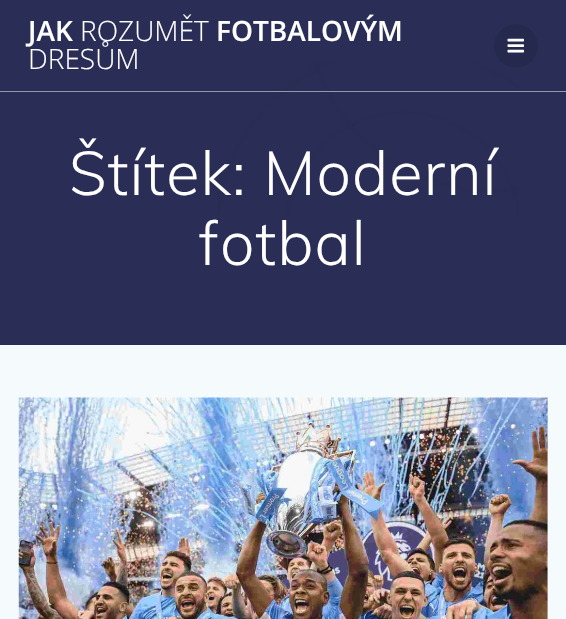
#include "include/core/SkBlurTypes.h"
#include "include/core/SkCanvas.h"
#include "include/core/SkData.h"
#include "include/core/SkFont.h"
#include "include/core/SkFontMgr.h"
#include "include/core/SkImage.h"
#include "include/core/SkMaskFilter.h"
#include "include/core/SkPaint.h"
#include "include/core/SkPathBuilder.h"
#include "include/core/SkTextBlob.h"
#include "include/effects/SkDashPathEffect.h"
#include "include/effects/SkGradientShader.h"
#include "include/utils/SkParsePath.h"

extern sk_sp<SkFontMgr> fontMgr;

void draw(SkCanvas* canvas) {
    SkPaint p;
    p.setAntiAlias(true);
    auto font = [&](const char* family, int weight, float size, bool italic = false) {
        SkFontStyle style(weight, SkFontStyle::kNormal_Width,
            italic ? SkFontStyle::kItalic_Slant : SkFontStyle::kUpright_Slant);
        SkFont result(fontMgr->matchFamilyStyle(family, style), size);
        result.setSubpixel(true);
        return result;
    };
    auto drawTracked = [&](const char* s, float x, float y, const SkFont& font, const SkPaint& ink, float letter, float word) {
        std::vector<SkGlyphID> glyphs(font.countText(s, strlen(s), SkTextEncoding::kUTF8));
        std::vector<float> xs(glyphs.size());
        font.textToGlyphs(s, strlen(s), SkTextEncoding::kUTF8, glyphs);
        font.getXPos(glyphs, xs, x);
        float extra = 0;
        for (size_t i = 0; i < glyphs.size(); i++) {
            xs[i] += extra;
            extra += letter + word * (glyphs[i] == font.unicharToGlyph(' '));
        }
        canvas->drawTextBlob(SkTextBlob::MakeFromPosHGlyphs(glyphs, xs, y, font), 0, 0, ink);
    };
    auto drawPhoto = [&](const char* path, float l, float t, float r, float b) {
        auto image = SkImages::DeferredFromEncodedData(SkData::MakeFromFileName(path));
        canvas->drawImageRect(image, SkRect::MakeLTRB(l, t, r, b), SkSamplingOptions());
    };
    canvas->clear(0xFF2A2E57);
    drawPhoto("media/2.png", 217, 62, 519, 221);
    p.setColor(0x80FFFFFF);
    canvas->drawRect(SkRect::MakeLTRB(0, 91, 566, 92), p);
    auto font1 = font("Open Sans", 600, 28);
    p.setColor(0xFFFFFFFF);
    canvas->drawString("JAK", 28, 41, font1, p);
    auto font2 = font("Open Sans", 300, 28);
    canvas->drawString("ROZUMĚT", 80, 41, font2, p);
    canvas->drawString("FOTBALOVÝM", 216, 41, font1, p);
    canvas->drawString("DRESŮM", 28, 69, font2, p);
    p.setColor(0xFF26294E);
    canvas->drawCircle(516, 46, 22, p);
    drawPhoto("media/1.png", 507, 38, 524, 53);
    auto font3 = font("Muli", 300, 61.25f);
    p.setColor(0xFFFFFFFF);
    drawTracked("Štítek: Moderní", 69, 195, font3, p, 1.1f, 0);
    drawTracked("fotbal", 199, 265, font3, p, 1.1f, 0);
    p.setColor(0xFFF5FAFD);
    canvas->drawRect(SkRect::MakeLTRB(0, 345, 566, 619), p);
    p.setStyle(SkPaint::kStroke_Style);
    p.setStrokeWidth(1);
    p.setColor(0xFFE0E1E1);
    canvas->drawRect(SkRect::MakeLTRB(19.5f, 398.5f, 547.5f, 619.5f), p);
    drawPhoto("media/3.png", 18, 397, 548, 619);
}
